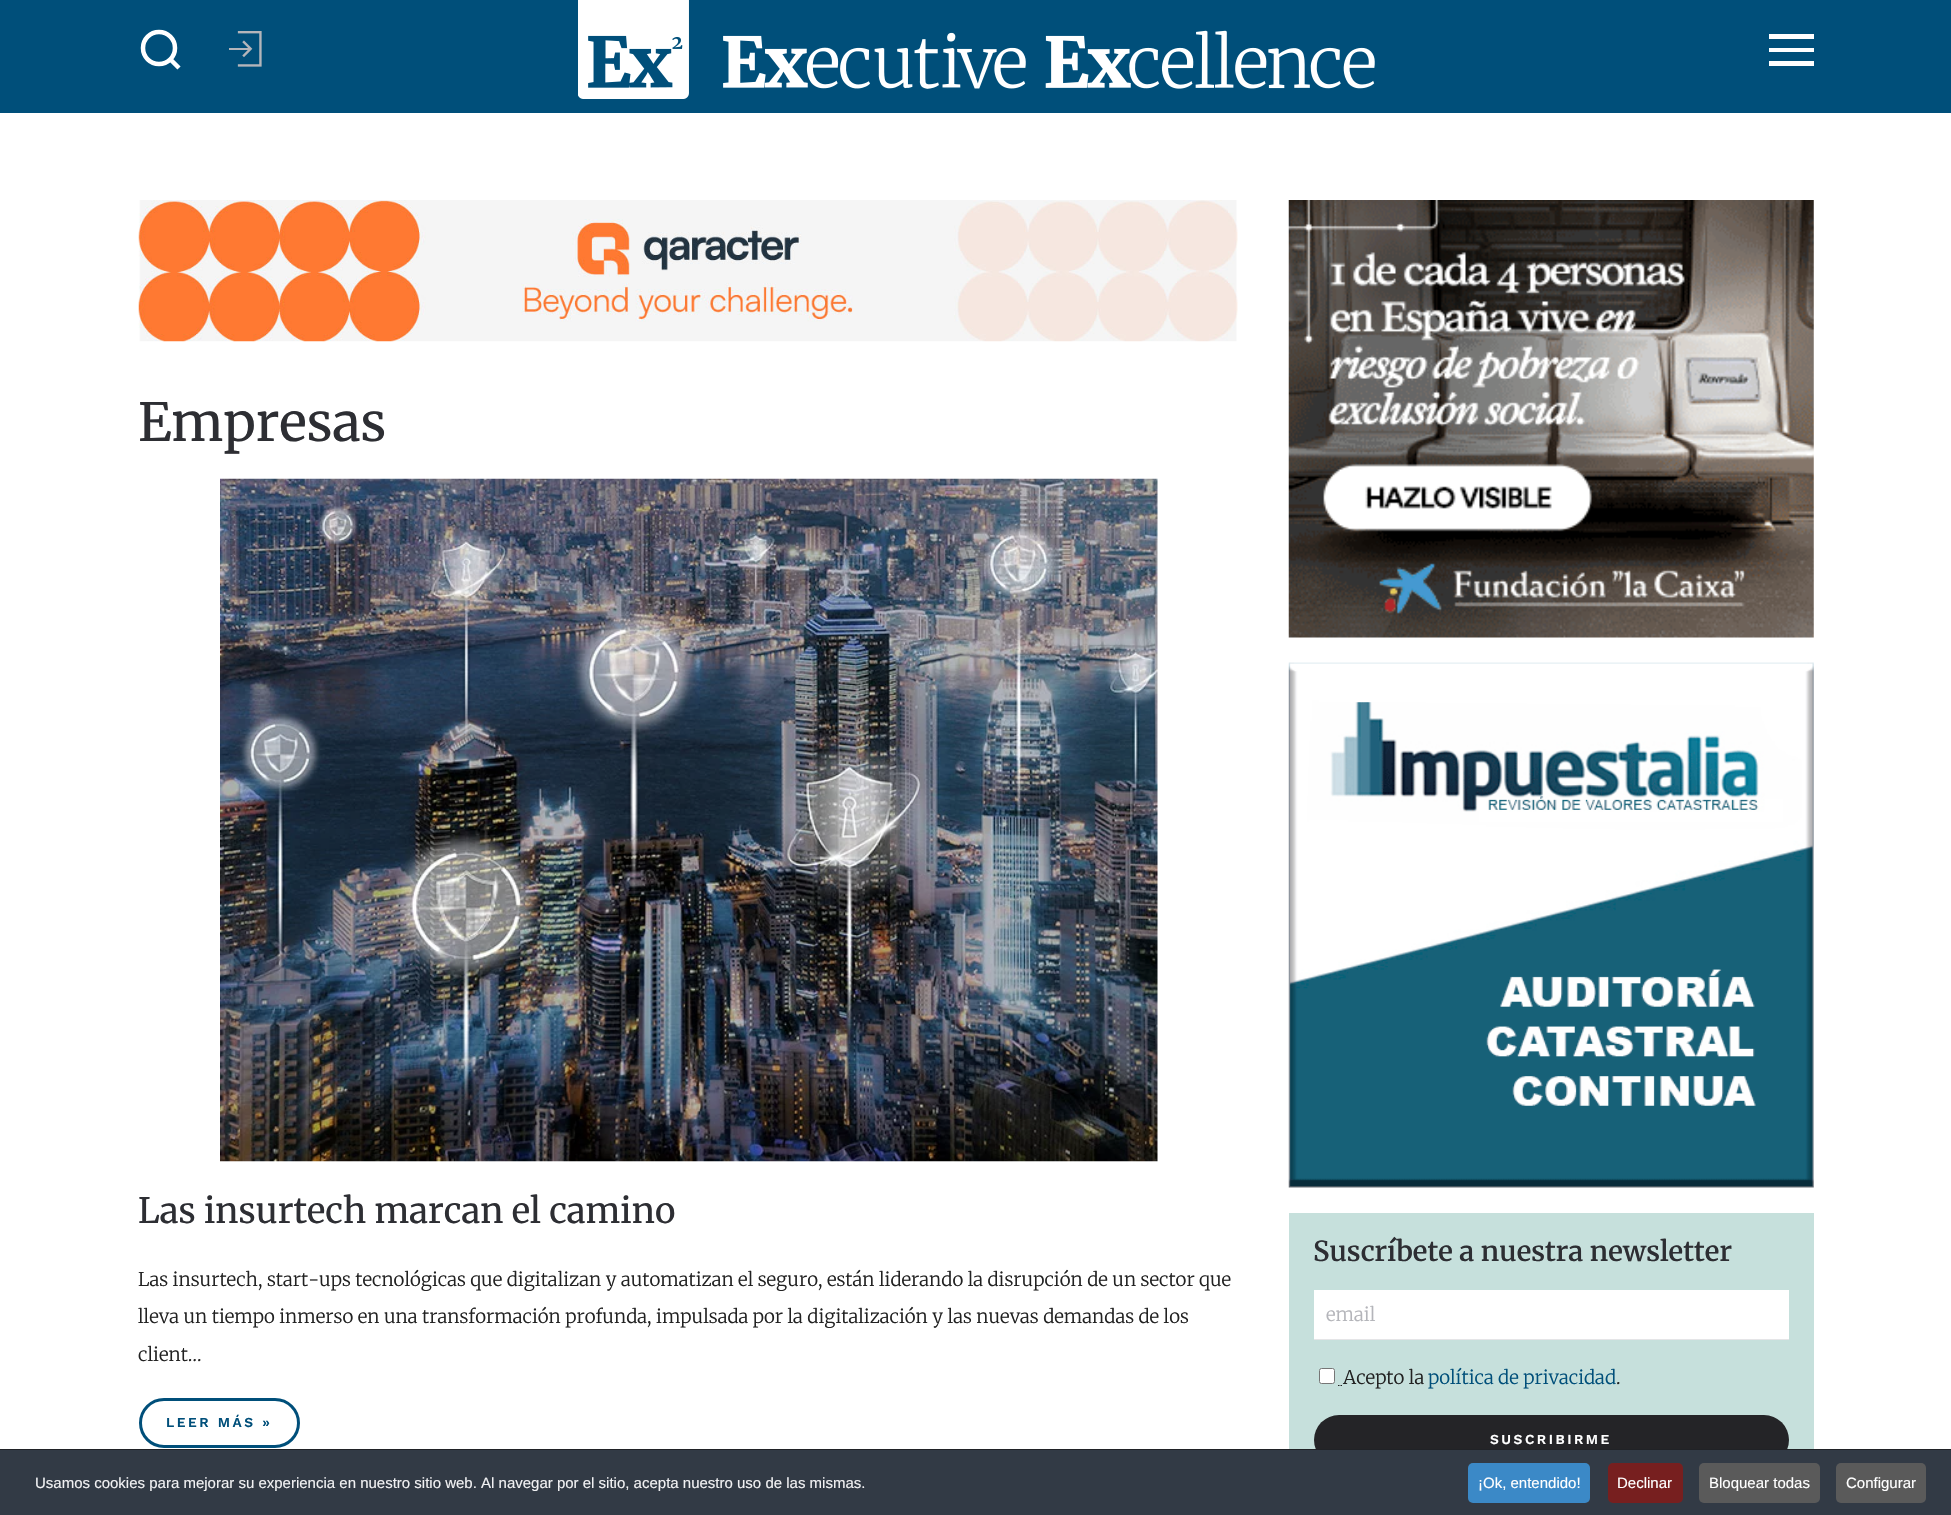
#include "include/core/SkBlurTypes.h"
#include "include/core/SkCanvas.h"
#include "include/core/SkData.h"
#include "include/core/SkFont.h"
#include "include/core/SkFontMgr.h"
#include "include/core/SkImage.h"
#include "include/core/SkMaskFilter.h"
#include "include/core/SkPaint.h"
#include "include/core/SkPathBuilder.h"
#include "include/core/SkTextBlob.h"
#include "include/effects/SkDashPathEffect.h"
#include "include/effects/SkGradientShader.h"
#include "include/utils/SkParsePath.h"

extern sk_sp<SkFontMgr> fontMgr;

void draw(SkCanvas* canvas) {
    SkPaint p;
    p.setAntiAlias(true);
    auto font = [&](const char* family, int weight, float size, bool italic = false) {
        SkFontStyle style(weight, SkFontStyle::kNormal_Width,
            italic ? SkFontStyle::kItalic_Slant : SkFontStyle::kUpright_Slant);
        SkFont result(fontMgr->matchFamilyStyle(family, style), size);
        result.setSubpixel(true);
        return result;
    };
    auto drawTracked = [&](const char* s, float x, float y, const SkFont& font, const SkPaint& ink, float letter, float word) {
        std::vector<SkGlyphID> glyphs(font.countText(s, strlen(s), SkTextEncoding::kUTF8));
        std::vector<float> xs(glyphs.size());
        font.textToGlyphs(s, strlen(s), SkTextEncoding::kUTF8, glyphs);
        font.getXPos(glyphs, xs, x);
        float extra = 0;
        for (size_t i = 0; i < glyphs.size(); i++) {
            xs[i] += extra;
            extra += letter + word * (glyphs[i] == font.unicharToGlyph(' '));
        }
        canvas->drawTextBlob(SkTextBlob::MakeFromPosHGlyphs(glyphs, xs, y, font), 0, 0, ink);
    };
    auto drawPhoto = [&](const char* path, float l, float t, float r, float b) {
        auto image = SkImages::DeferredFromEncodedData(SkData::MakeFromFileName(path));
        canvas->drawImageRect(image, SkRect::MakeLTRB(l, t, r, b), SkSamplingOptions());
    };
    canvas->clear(0xFFFFFFFF);
    p.setColor(0xFF004F7A);
    canvas->drawRect(SkRect::MakeLTRB(0, 0, 1951, 113), p);
    p.setStyle(SkPaint::kStroke_Style);
    p.setStrokeWidth(4.5f);
    p.setColor(0xFFFFFFFF);
    canvas->drawCircle(159, 48, 16, p);
    canvas->drawPath(SkPathBuilder().moveTo(170, 59).lineTo(179, 68).close().detach(), p);
    drawPhoto("media/1.png", 229, 31, 262, 67);
    drawPhoto("media/2.png", 578, 0, 1375, 99);
    p.setStyle(SkPaint::kFill_Style);
    {
        const struct { float l, t, r, b; SkColor color; } items[] = {
            {1769, 34, 1814, 39, 0xFFFFFFFF},
            {1769, 48, 1814, 52, 0xFFFFFFFF},
            {1769, 61, 1814, 66, 0xFFFFFFFF},
        };
        for (auto [l, t, r, b, color] : items) {
            p.setColor(color);
            canvas->drawRect(SkRect::MakeLTRB(l, t, r, b), p);
        }
    }
    drawPhoto("media/3.png", 138, 200, 1238, 342);
    auto font1 = font("Merriweather", 300, 52.5f);
    p.setColor(0xFF2D2E33);
    canvas->drawString("Empresas", 138, 441, font1, p);
    drawPhoto("media/4.png", 220, 478, 1158, 1162);
    auto font2 = font("Merriweather", 300, 35);
    canvas->drawString("Las insurtech marcan el camino", 138, 1223, font2, p);
    auto font3 = font("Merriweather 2", 300, 18.75f);
    p.setColor(0xFF222222);
    {
        const struct { const char* s; float x, y; } items[] = {
            {"Las insurtech, start-ups tecnológicas que digitalizan y automatizan el seguro, están liderando la disrupción de un sector que", 138, 1286},
            {"lleva un tiempo inmerso en una transformación profunda, impulsada por la digitalización y las nuevas demandas de los", 138, 1323},
            {"client…", 138, 1361},
        };
        for (auto [s, x, y] : items) {
            canvas->drawString(s, x, y, font3, p);
        }
    }
    p.setStyle(SkPaint::kStroke_Style);
    p.setStrokeWidth(3);
    p.setColor(0xFF004F7A);
    canvas->drawRoundRect(SkRect::MakeLTRB(140.5f, 1399.5f, 298.5f, 1446.5f), 23.5f, 23.5f, p);
    auto font4 = font("Work Sans", 600, 13.75f);
    p.setStyle(SkPaint::kFill_Style);
    drawTracked("LEER MÁS »", 166, 1427, font4, p, 2.5f, 0);
    drawPhoto("media/5.png", 1288, 200, 1814, 638);
    drawPhoto("media/6.png", 1288, 662, 1814, 1188);
    p.setColor(0xFFC6E0DC);
    canvas->drawRect(SkRect::MakeLTRB(1289, 1213, 1814, 1449), p);
    auto font5 = font("Merriweather", 600, 27.5f);
    p.setColor(0xFF2D2E33);
    canvas->drawString("Suscríbete a nuestra newsletter", 1313, 1261, font5, p);
    p.setColor(0xFFFFFFFF);
    canvas->drawRect(SkRect::MakeLTRB(1314, 1290, 1789, 1339), p);
    p.setColor(0xFFE5E5E7);
    canvas->drawRect(SkRect::MakeLTRB(1314, 1339, 1789, 1340), p);
    p.setColor(0xFFB4B5BA);
    canvas->drawString("email", 1326, 1321, font3, p);
    p.setColor(0xFFFFFFFF);
    canvas->drawRoundRect(SkRect::MakeLTRB(1319.5f, 1368.5f, 1334.5f, 1383.5f), 2, 2, p);
    p.setStyle(SkPaint::kStroke_Style);
    p.setStrokeWidth(1);
    p.setColor(0xFF767676);
    canvas->drawRoundRect(SkRect::MakeLTRB(1319.5f, 1368.5f, 1334.5f, 1383.5f), 2, 2, p);
    p.setStyle(SkPaint::kFill_Style);
    p.setColor(0xFF222222);
    canvas->drawString("Acepto la", 1343, 1384, font3, p);
    p.setColor(0xFF004F7A);
    canvas->drawString("política de privacidad", 1428, 1384, font3, p);
    p.setColor(0xFF222222);
    canvas->drawString(".", 1616, 1384, font3, p);
    p.setStyle(SkPaint::kStroke_Style);
    p.setStrokeWidth(1.2f);
    canvas->drawPath(SkPathBuilder().moveTo(1338, 1385.5f).lineTo(1339.5f, 1385.5f).moveTo(1340.5f, 1385.5f).lineTo(1342, 1385.5f).detach(), p);
    p.setStyle(SkPaint::kFill_Style);
    p.setColor(0xFF242427);
    canvas->drawRoundRect(SkRect::MakeLTRB(1314, 1415, 1789, 1465), 25, 25, p);
    p.setColor(0xFFFFFFFF);
    drawTracked("SUSCRIBIRME", 1490, 1444, font4, p, 2.5f, 0);
    p.setColor(0xFF323A45);
    canvas->drawRect(SkRect::MakeLTRB(0, 1450, 1951, 1515), p);
    p.setColor(0xFF202226);
    canvas->drawRect(SkRect::MakeLTRB(0, 1449, 1951, 1450), p);
    auto font6 = font("Liberation Sans", 400, 15);
    p.setColor(0xFFF1F1F3);
    canvas->drawString("Usamos cookies para mejorar su experiencia en nuestro sitio web. Al navegar por el sitio, acepta nuestro uso de las mismas.", 35, 1488, font6, p);
    p.setColor(0xFF3B89C7);
    canvas->drawRoundRect(SkRect::MakeLTRB(1468, 1463, 1590, 1503), 5, 5, p);
    p.setColor(0xFFFFFFFF);
    canvas->drawString("¡Ok, entendido!", 1478, 1488, font6, p);
    p.setColor(0xFF771F1F);
    canvas->drawRoundRect(SkRect::MakeLTRB(1608, 1463, 1683, 1503), 5, 5, p);
    p.setColor(0xFFFFFFFF);
    canvas->drawString("Declinar", 1617, 1488, font6, p);
    p.setColor(0xFF5A5A5A);
    canvas->drawRoundRect(SkRect::MakeLTRB(1699, 1463, 1820, 1503), 5, 5, p);
    p.setColor(0xFFFFFFFF);
    canvas->drawString("Bloquear todas", 1709, 1488, font6, p);
    p.setColor(0xFF5A5A5A);
    canvas->drawRoundRect(SkRect::MakeLTRB(1836, 1463, 1926, 1503), 5, 5, p);
    p.setColor(0xFFFFFFFF);
    canvas->drawString("Configurar", 1846, 1488, font6, p);
}
